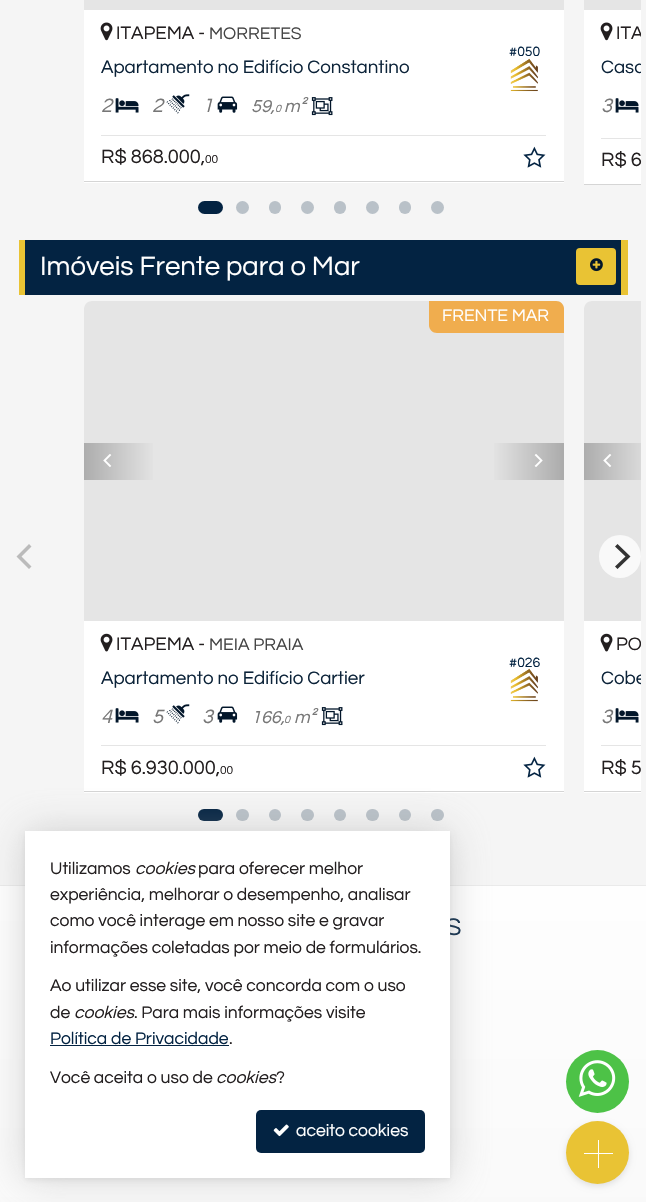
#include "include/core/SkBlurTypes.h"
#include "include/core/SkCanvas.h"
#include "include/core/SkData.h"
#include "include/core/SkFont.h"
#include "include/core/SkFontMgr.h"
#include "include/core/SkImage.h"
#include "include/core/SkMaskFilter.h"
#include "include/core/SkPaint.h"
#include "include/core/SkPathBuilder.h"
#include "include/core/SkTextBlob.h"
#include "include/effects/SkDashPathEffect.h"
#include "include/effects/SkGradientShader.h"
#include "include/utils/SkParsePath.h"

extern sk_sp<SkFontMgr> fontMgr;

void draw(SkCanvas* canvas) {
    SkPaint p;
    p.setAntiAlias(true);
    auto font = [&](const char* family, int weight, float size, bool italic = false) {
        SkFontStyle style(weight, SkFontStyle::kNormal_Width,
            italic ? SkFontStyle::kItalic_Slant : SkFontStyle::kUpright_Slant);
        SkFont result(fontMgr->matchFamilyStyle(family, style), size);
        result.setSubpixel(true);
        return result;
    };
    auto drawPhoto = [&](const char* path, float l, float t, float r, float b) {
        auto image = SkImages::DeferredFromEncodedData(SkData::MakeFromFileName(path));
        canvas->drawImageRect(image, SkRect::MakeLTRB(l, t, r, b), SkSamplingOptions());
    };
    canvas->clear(0xFFF5F5F5);
    p.setColor(0xFFFFFFFF);
    canvas->drawRect(SkRect::MakeLTRB(84, 10, 564, 183), p);
    p.setColor(0xFFE5E5E5);
    canvas->drawRect(SkRect::MakeLTRB(84, 0, 564, 10), p);
    drawPhoto("media/1.png", 100, 22, 113, 41);
    auto font1 = font("Questrial", 400, 18.75f);
    p.setColor(0xFF231F20);
    canvas->drawString("ITAPEMA -", 116, 39, font1, p);
    auto font2 = font("Questrial", 400, 17.5f);
    p.setColor(0xFF444444);
    canvas->drawString("MORRETES", 209, 39, font2, p);
    p.setColor(0xFF0C2339);
    canvas->drawString("Apartamento no Edifício Constantino", 101, 73, font1, p);
    auto font3 = font("Questrial", 400, 20, true);
    p.setColor(0xFF777777);
    canvas->drawString("2", 101, 112, font3, p);
    drawPhoto("media/2.png", 115, 98, 139, 113);
    canvas->drawString("2", 152, 112, font3, p);
    drawPhoto("media/3.png", 166, 94, 190, 114);
    canvas->drawString("1", 202, 112, font3, p);
    drawPhoto("media/4.png", 217, 96, 238, 113);
    auto font4 = font("Questrial", 400, 18, true);
    canvas->drawString("59,", 251, 112, font4, p);
    auto font5 = font("Questrial", 400, 11, true);
    canvas->drawString("0", 275, 112, font5, p);
    canvas->drawString("m²", 284, 112, font4, p);
    drawPhoto("media/5.png", 311, 97, 333, 116);
    drawPhoto("media/6.png", 510, 58, 538, 92);
    auto font6 = font("Questrial", 400, 14);
    p.setColor(0xFF032342);
    canvas->drawString("#050", 509, 56, font6, p);
    p.setColor(0xFFD5D5D5);
    canvas->drawRect(SkRect::MakeLTRB(84, 181, 564, 182), p);
    p.setColor(0xFFE5E5E5);
    canvas->drawRect(SkRect::MakeLTRB(101, 135, 546, 136), p);
    auto font7 = font("Questrial", 400, 20);
    p.setColor(0xFF231F20);
    canvas->drawString("R$ 868.000,", 101, 163, font7, p);
    auto font8 = font("Questrial", 400, 12);
    canvas->drawString("00", 205, 163, font8, p);
    drawPhoto("media/7.png", 523, 146, 546, 168);
    p.setColor(0xFFFFFFFF);
    canvas->drawRect(SkRect::MakeLTRB(584, 10, 641, 184), p);
    p.setColor(0xFFE5E5E5);
    canvas->drawRect(SkRect::MakeLTRB(584, 0, 641, 10), p);
    drawPhoto("media/1.png", 600, 22, 613, 41);
    canvas->save();
    canvas->clipRect(SkRect::MakeLTRB(600, 20, 641, 48));
    p.setColor(0xFF231F20);
    canvas->drawString("ITA", 616, 39, font1, p);
    canvas->restore();
    canvas->save();
    canvas->clipRect(SkRect::MakeLTRB(601, 48, 641, 86));
    p.setColor(0xFF0C2339);
    canvas->drawString("Casa", 601, 73, font1, p);
    canvas->restore();
    p.setColor(0xFF777777);
    canvas->drawString("3", 601, 112, font3, p);
    drawPhoto("media/2.png", 615, 98, 639, 113);
    p.setColor(0xFFD5D5D5);
    canvas->drawRect(SkRect::MakeLTRB(584, 184, 641, 185), p);
    p.setColor(0xFFE5E5E5);
    canvas->drawRect(SkRect::MakeLTRB(601, 138, 641, 139), p);
    p.setColor(0xFF231F20);
    canvas->drawString("R$ 6", 601, 166, font7, p);
    p.setColor(0xFF032342);
    canvas->drawRoundRect(SkRect::MakeLTRB(198, 201, 223, 214), 6.5f, 6.5f, p);
    p.setColor(0xFFB9C1C8);
    canvas->drawCircle(242.5f, 207.5f, 6.5f, p);
    canvas->drawRoundRect(SkRect::MakeLTRB(269, 201, 281, 214), 6, 6, p);
    canvas->drawCircle(307.5f, 207.5f, 6.5f, p);
    canvas->drawRoundRect(SkRect::MakeLTRB(334, 201, 346, 214), 6, 6, p);
    canvas->drawCircle(372.5f, 207.5f, 6.5f, p);
    canvas->drawRoundRect(SkRect::MakeLTRB(399, 201, 411, 214), 6, 6, p);
    canvas->drawCircle(437.5f, 207.5f, 6.5f, p);
    {
        const struct { float l, t, r, b; SkColor color; } items[] = {
            {25, 240, 621, 295, 0xFF032342},
            {621, 240, 628, 295, 0xFFE9C334},
            {19, 240, 25, 295, 0xFFE9C334},
        };
        for (auto [l, t, r, b, color] : items) {
            p.setColor(color);
            canvas->drawRect(SkRect::MakeLTRB(l, t, r, b), p);
        }
    }
    auto font9 = font("Questrial", 400, 27.5f);
    p.setColor(0xFFFFFFFF);
    canvas->drawString("Imóveis Frente para o Mar", 40, 275, font9, p);
    p.setColor(0xFFE9C334);
    canvas->drawRoundRect(SkRect::MakeLTRB(576, 248, 616, 285), 4, 4, p);
    drawPhoto("media/8.png", 590, 258, 603, 272);
    p.setColor(0xFFFFFFFF);
    canvas->drawPath(SkPathBuilder().moveTo(92, 301).lineTo(556, 301).cubicTo(560.5f, 301, 564, 304.5f, 564, 309).lineTo(564, 793).lineTo(84, 793).lineTo(84, 309).cubicTo(84, 304.5f, 87.5f, 301, 92, 301).close().detach(), p);
    p.setColor(0xFFE5E5E5);
    canvas->drawPath(SkPathBuilder().moveTo(92, 301).lineTo(556, 301).cubicTo(560.5f, 301, 564, 304.5f, 564, 309).lineTo(564, 621).lineTo(84, 621).lineTo(84, 309).cubicTo(84, 304.5f, 87.5f, 301, 92, 301).close().detach(), p);
    {
        const SkColor colors[] = {0xFFE5E5E5, 0xFFACACAC};
        const float stops[] = {0, 1};
        const SkPoint ends[] = {{156, 461}, {83, 461}};
        p.setShader(SkGradientShader::MakeLinear(ends, colors, stops, 2, SkTileMode::kClamp));
        p.setAlpha(255);
    }
    canvas->drawRect(SkRect::MakeLTRB(84, 443, 153, 480), p);
    drawPhoto("media/9.png", 103, 454, 112, 467);
    {
        const SkColor colors[] = {0xFFE5E5E5, 0xFFACACAC};
        const float stops[] = {0, 1};
        const SkPoint ends[] = {{491, 461}, {563, 461}};
        p.setShader(SkGradientShader::MakeLinear(ends, colors, stops, 2, SkTileMode::kClamp));
        p.setAlpha(255);
    }
    canvas->drawRect(SkRect::MakeLTRB(494, 443, 564, 480), p);
    drawPhoto("media/10.png", 534, 454, 543, 467);
    p.setShader(nullptr);
    p.setColor(0xFFF0AD4E);
    canvas->drawPath(SkPathBuilder().moveTo(429, 301).lineTo(556, 301).cubicTo(560.5f, 301, 564, 304.5f, 564, 309).lineTo(564, 333).lineTo(437, 333).cubicTo(432.5f, 333, 429, 329.5f, 429, 325).close().detach(), p);
    p.setColor(0xFFFFFFFF);
    canvas->drawString("FRENTE MAR", 442, 321, font2, p);
    drawPhoto("media/11.png", 100, 633, 113, 652);
    p.setColor(0xFF231F20);
    canvas->drawString("ITAPEMA -", 116, 650, font1, p);
    p.setColor(0xFF444444);
    canvas->drawString("MEIA PRAIA", 209, 650, font2, p);
    p.setColor(0xFF0C2339);
    canvas->drawString("Apartamento no Edifício Cartier", 101, 684, font1, p);
    p.setColor(0xFF777777);
    canvas->drawString("4", 101, 723, font3, p);
    drawPhoto("media/2.png", 115, 708, 139, 723);
    canvas->drawString("5", 152, 723, font3, p);
    drawPhoto("media/3.png", 166, 704, 190, 724);
    canvas->drawString("3", 202, 723, font3, p);
    drawPhoto("media/4.png", 217, 706, 238, 723);
    canvas->drawString("166,", 251, 723, font4, p);
    canvas->drawString("0", 284, 723, font5, p);
    canvas->drawString("m²", 294, 723, font4, p);
    drawPhoto("media/5.png", 321, 707, 343, 726);
    drawPhoto("media/12.png", 510, 668, 538, 702);
    p.setColor(0xFF032342);
    canvas->drawString("#026", 509, 667, font6, p);
    p.setColor(0xFFD5D5D5);
    canvas->drawRect(SkRect::MakeLTRB(84, 791, 564, 792), p);
    p.setColor(0xFFE5E5E5);
    canvas->drawRect(SkRect::MakeLTRB(101, 745, 546, 746), p);
    p.setColor(0xFF231F20);
    canvas->drawString("R$ 6.930.000,", 101, 774, font7, p);
    canvas->drawString("00", 220, 774, font8, p);
    drawPhoto("media/7.png", 523, 756, 546, 778);
    p.setColor(0xFFFFFFFF);
    canvas->drawPath(SkPathBuilder().moveTo(592, 301).lineTo(641, 301).lineTo(641, 793).lineTo(584, 793).lineTo(584, 309).cubicTo(584, 304.5f, 587.5f, 301, 592, 301).close().detach(), p);
    p.setColor(0xFFE5E5E5);
    canvas->drawPath(SkPathBuilder().moveTo(592, 301).lineTo(641, 301).lineTo(641, 621).lineTo(584, 621).lineTo(584, 309).cubicTo(584, 304.5f, 587.5f, 301, 592, 301).close().detach(), p);
    {
        const SkColor colors[] = {0xFFE5E5E5, 0xFFACACAC};
        const float stops[] = {0, 1};
        const SkPoint ends[] = {{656, 461}, {583, 461}};
        p.setShader(SkGradientShader::MakeLinear(ends, colors, stops, 2, SkTileMode::kClamp));
        p.setAlpha(255);
    }
    canvas->drawRect(SkRect::MakeLTRB(584, 443, 641, 480), p);
    drawPhoto("media/9.png", 603, 454, 612, 467);
    drawPhoto("media/11.png", 600, 633, 613, 652);
    canvas->save();
    canvas->clipRect(SkRect::MakeLTRB(600, 631, 641, 659));
    p.setShader(nullptr);
    p.setColor(0xFF231F20);
    canvas->drawString("PO", 616, 650, font1, p);
    canvas->restore();
    canvas->save();
    canvas->clipRect(SkRect::MakeLTRB(601, 659, 641, 698));
    p.setColor(0xFF0C2339);
    canvas->drawString("Cobe", 601, 684, font1, p);
    canvas->restore();
    p.setColor(0xFF777777);
    canvas->drawString("3", 601, 723, font3, p);
    drawPhoto("media/2.png", 615, 708, 639, 723);
    p.setColor(0xFFD5D5D5);
    canvas->drawRect(SkRect::MakeLTRB(584, 791, 641, 792), p);
    p.setColor(0xFFE5E5E5);
    canvas->drawRect(SkRect::MakeLTRB(601, 745, 641, 746), p);
    p.setColor(0xFF231F20);
    canvas->drawString("R$ 5", 601, 774, font7, p);
    p.setColor(0xFFBBBBBB);
    canvas->drawPath(SkPathBuilder().moveTo(16.5f, 556.5f).lineTo(29, 569).lineTo(31.5f, 566.5f).lineTo(21.5f, 556.5f).lineTo(31.5f, 546.5f).lineTo(29, 544).close().detach(), p);
    p.setColor(0xFFF9F9F9);
    canvas->drawRoundRect(SkRect::MakeLTRB(599, 535, 641, 578), 21, 21, p);
    p.setColor(0xFF333333);
    canvas->drawPath(SkPathBuilder().moveTo(630.5f, 556.5f).lineTo(617.5f, 544).lineTo(615, 546.5f).lineTo(625.5f, 556.5f).lineTo(615, 566.5f).lineTo(617.5f, 569).close().detach(), p);
    p.setColor(0xFF032342);
    canvas->drawRoundRect(SkRect::MakeLTRB(198, 809, 223, 821), 6, 6, p);
    p.setColor(0xFFB9C1C8);
    canvas->drawRoundRect(SkRect::MakeLTRB(236, 809, 249, 821), 6, 6, p);
    canvas->drawCircle(275, 815, 6, p);
    canvas->drawRoundRect(SkRect::MakeLTRB(301, 809, 314, 821), 6, 6, p);
    canvas->drawCircle(340, 815, 6, p);
    canvas->drawRoundRect(SkRect::MakeLTRB(366, 809, 379, 821), 6, 6, p);
    canvas->drawCircle(405, 815, 6, p);
    canvas->drawRoundRect(SkRect::MakeLTRB(431, 809, 444, 821), 6, 6, p);
    p.setColor(0xFFEAEAEA);
    canvas->drawRect(SkRect::MakeLTRB(0, 885, 646, 886), p);
    {
        const SkColor colors[] = {0xFFFEFEFE, 0xFFF2F2F2};
        const float stops[] = {0, 1};
        const SkPoint ends[] = {{323, 886}, {323, 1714}};
        p.setShader(SkGradientShader::MakeLinear(ends, colors, stops, 2, SkTileMode::kClamp));
        p.setAlpha(255);
    }
    canvas->drawRect(SkRect::MakeLTRB(0, 886, 646, 1202), p);
    auto font10 = font("Questrial", 400, 25);
    p.setShader(nullptr);
    p.setColor(0xFF032342);
    canvas->drawString("S", 446, 935, font10, p);
    p.setColor(0x12000000);
    p.setMaskFilter(SkMaskFilter::MakeBlur(kNormal_SkBlurStyle, 2.5f));
    canvas->drawRect(SkRect::MakeLTRB(25, 834, 450, 1180), p);
    p.setMaskFilter(nullptr);
    p.setColor(0x709F9F9F);
    p.setMaskFilter(SkMaskFilter::MakeBlur(kNormal_SkBlurStyle, 19));
    canvas->drawRect(SkRect::MakeLTRB(25, 831, 450, 1178), p);
    p.setMaskFilter(nullptr);
    p.setColor(0xFFFFFFFF);
    canvas->drawRect(SkRect::MakeLTRB(25, 831, 450, 1178), p);
    p.setColor(0xFF231F20);
    canvas->drawString("Utilizamos", 50, 874, font2, p);
    auto font11 = font("Questrial", 400, 17.5f, true);
    canvas->drawString("cookies", 135, 874, font11, p);
    {
        const struct { const char* s; float x, y; } items[] = {
            {"para oferecer melhor", 198, 874},
            {"experiência, melhorar o desempenho, analisar", 50, 900},
            {"como você interage em nosso site e gravar", 50, 926},
            {"informações coletadas por meio de formulários.", 50, 953},
            {"Ao utilizar esse site, você concorda com o uso", 50, 991},
            {"de", 50, 1018},
        };
        for (auto [s, x, y] : items) {
            canvas->drawString(s, x, y, font2, p);
        }
    }
    canvas->drawString("cookies", 74, 1018, font11, p);
    canvas->drawString(". Para mais informações visite", 134, 1018, font2, p);
    p.setColor(0xFF032342);
    canvas->drawString("Política de Privacidade", 50, 1044, font2, p);
    canvas->drawRect(SkRect::MakeLTRB(50, 1045, 229, 1046), p);
    p.setColor(0xFF231F20);
    canvas->drawString(".", 229, 1044, font2, p);
    canvas->drawString("Você aceita o uso de", 50, 1083, font2, p);
    canvas->drawString("cookies", 216, 1083, font11, p);
    canvas->drawString("?", 276, 1083, font2, p);
    p.setColor(0xFF032342);
    canvas->drawRoundRect(SkRect::MakeLTRB(256, 1110, 425, 1153), 5, 5, p);
    drawPhoto("media/13.png", 273, 1124, 289, 1137);
    p.setColor(0xFFFFFFFF);
    canvas->drawString("aceito cookies", 296, 1136, font2, p);
    p.setColor(0xFF4DC247);
    canvas->drawCircle(597.5f, 1081.5f, 31.5f, p);
    drawPhoto("media/14.png", 578, 1060, 616, 1097);
    p.setColor(0x1C000000);
    p.setMaskFilter(SkMaskFilter::MakeBlur(kNormal_SkBlurStyle, 3));
    canvas->drawRoundRect(SkRect::MakeLTRB(566, 1124, 629, 1186), 31, 31, p);
    p.setMaskFilter(nullptr);
    p.setColor(0xFFE9C334);
    canvas->drawCircle(597.5f, 1152.5f, 31.5f, p);
    p.setColor(0xFFFFFFFF);
    canvas->drawRect(SkRect::MakeLTRB(584, 1153, 613, 1154), p);
    canvas->drawRect(SkRect::MakeLTRB(598, 1140, 599, 1168), p);
}
